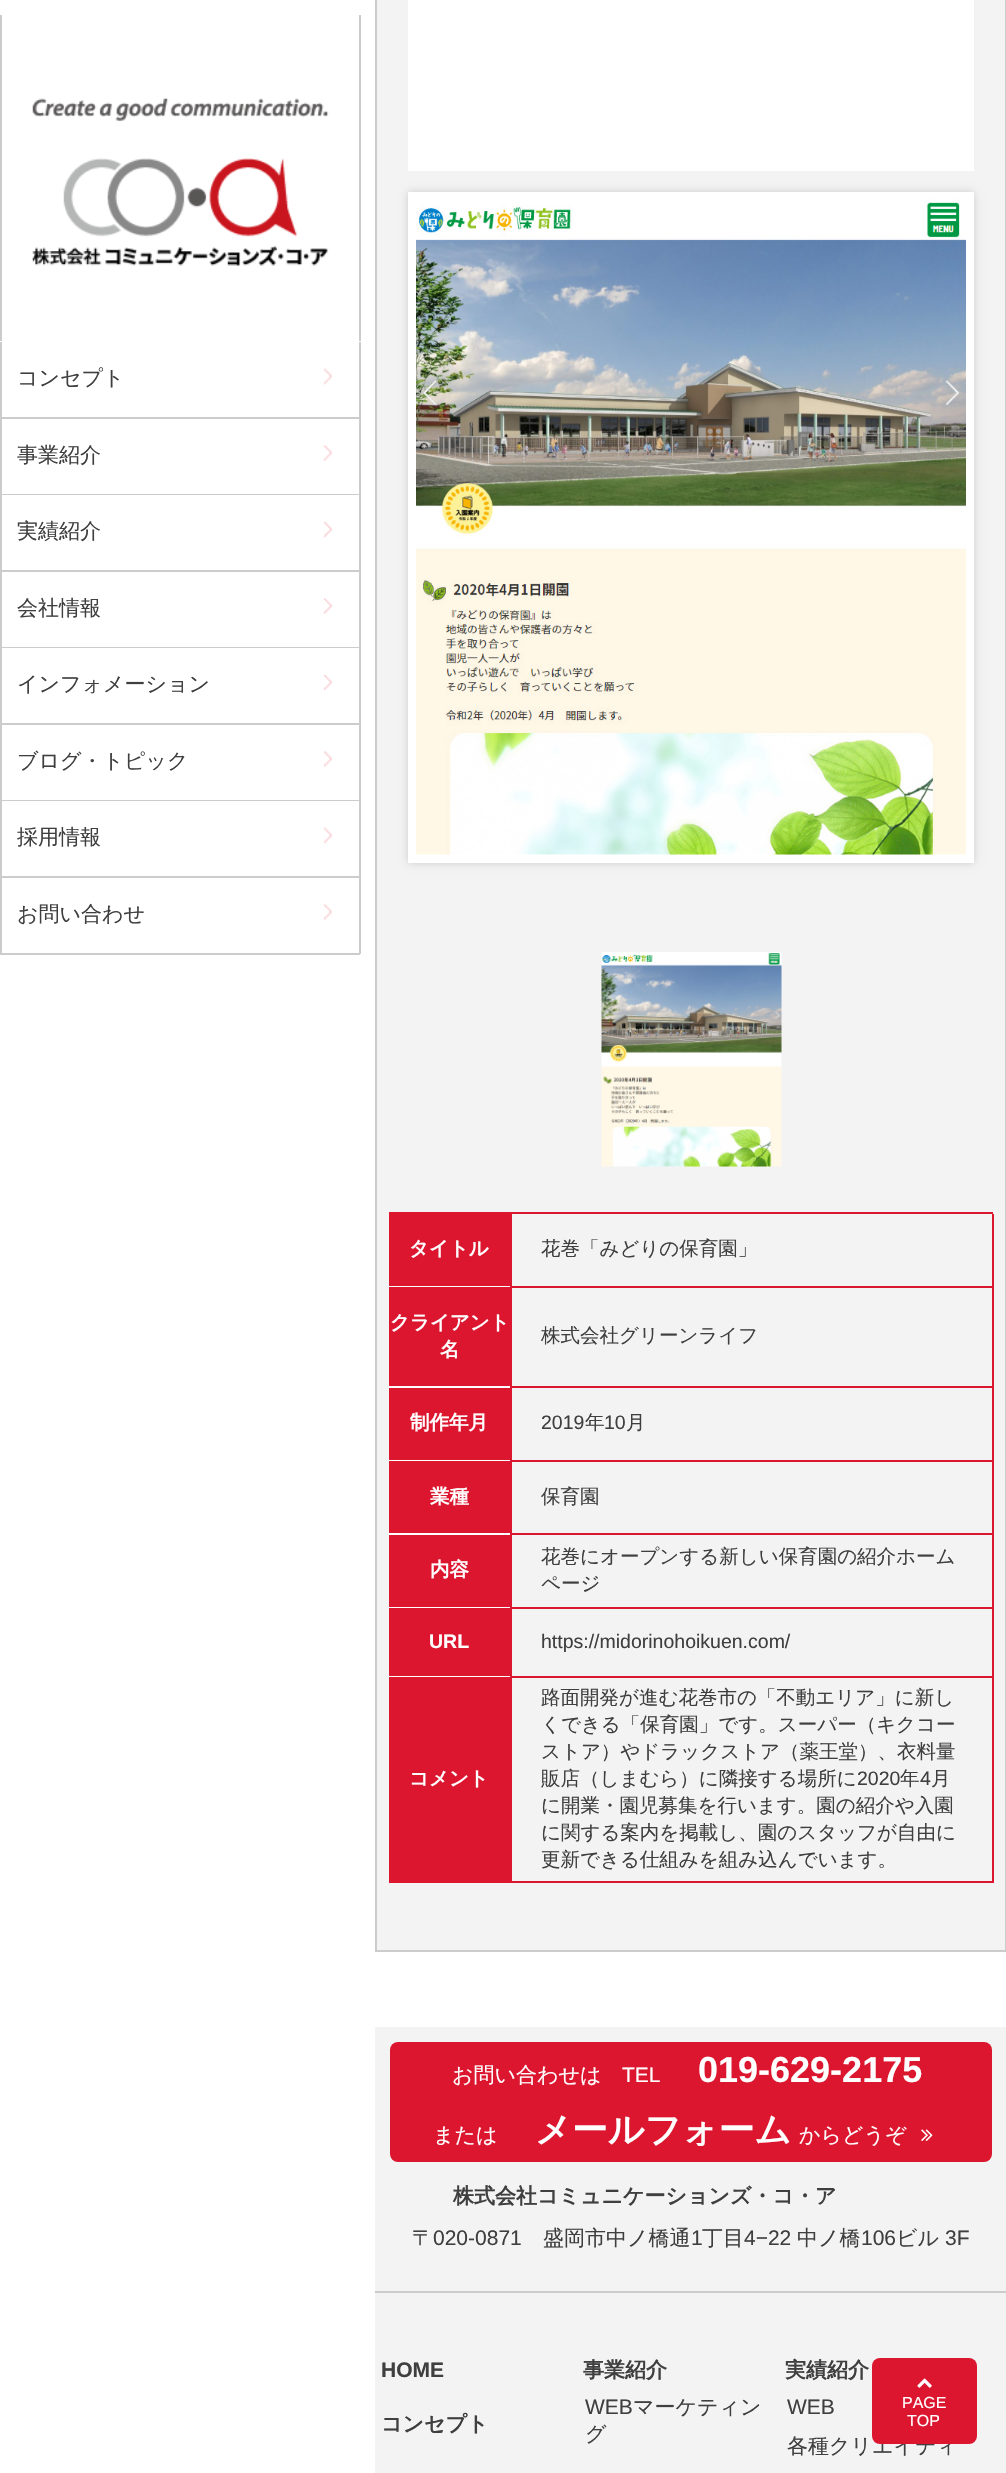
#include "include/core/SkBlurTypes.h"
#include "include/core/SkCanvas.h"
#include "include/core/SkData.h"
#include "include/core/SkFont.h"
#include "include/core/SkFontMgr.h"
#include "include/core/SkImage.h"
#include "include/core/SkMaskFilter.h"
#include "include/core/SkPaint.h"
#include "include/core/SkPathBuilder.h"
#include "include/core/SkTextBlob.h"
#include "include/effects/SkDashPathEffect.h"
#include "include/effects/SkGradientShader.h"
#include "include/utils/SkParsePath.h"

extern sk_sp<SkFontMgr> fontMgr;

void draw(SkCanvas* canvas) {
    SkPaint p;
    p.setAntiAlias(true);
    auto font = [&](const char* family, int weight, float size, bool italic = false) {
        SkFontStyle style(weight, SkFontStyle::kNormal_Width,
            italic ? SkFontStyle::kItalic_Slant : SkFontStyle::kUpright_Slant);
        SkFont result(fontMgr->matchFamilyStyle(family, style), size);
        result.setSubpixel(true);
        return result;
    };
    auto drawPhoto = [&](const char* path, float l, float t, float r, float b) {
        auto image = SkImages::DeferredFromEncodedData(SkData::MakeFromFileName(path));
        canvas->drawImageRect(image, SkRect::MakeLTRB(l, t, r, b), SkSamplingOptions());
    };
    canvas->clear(0xFFFFFFFF);
    p.setColor(0xFFCCCCCC);
    canvas->drawRect(SkRect::MakeLTRB(359, 15, 361, 341), p);
    canvas->drawRect(SkRect::MakeLTRB(0, 15, 2, 341), p);
    drawPhoto("media/1.png", 32, 98, 329, 266);
    {
        const struct { float l, t, r, b; SkColor color; } items[] = {
            {0, 342, 359, 953, 0xFFCCCCCC},
            {359, 342, 361, 954, 0xFFCCCCCC},
            {0, 953, 360, 955, 0xFFCCCCCC},
            {2, 342, 359, 417, 0xFFFFFFFF},
        };
        for (auto [l, t, r, b, color] : items) {
            p.setColor(color);
            canvas->drawRect(SkRect::MakeLTRB(l, t, r, b), p);
        }
    }
    auto font1 = font("WenQuanYi Zen Hei", 500, 21);
    p.setColor(0xFF3F3F3F);
    canvas->drawString("コンセプト", 17, 385, font1, p);
    drawPhoto("media/2.png", 324, 368, 332, 385);
    p.setColor(0xFFFFFFFF);
    canvas->drawRect(SkRect::MakeLTRB(2, 419, 359, 494), p);
    p.setColor(0xFF3F3F3F);
    canvas->drawString("事業紹介", 17, 462, font1, p);
    drawPhoto("media/3.png", 324, 445, 332, 461);
    p.setColor(0xFFFFFFFF);
    canvas->drawRect(SkRect::MakeLTRB(2, 495, 359, 570), p);
    p.setColor(0xFF3F3F3F);
    canvas->drawString("実績紹介", 17, 538, font1, p);
    drawPhoto("media/4.png", 324, 521, 332, 538);
    p.setColor(0xFFFFFFFF);
    canvas->drawRect(SkRect::MakeLTRB(2, 572, 359, 647), p);
    p.setColor(0xFF3F3F3F);
    canvas->drawString("会社情報", 17, 615, font1, p);
    drawPhoto("media/5.png", 324, 598, 332, 614);
    p.setColor(0xFFFFFFFF);
    canvas->drawRect(SkRect::MakeLTRB(2, 648, 359, 723), p);
    p.setColor(0xFF3F3F3F);
    canvas->drawString("インフォメーション", 17, 691, font1, p);
    drawPhoto("media/6.png", 324, 675, 332, 690);
    p.setColor(0xFFFFFFFF);
    canvas->drawRect(SkRect::MakeLTRB(2, 725, 359, 800), p);
    p.setColor(0xFF3F3F3F);
    canvas->drawString("ブログ・トピック", 17, 768, font1, p);
    drawPhoto("media/3.png", 324, 751, 332, 767);
    p.setColor(0xFFFFFFFF);
    canvas->drawRect(SkRect::MakeLTRB(2, 801, 359, 876), p);
    p.setColor(0xFF3F3F3F);
    canvas->drawString("採用情報", 17, 844, font1, p);
    drawPhoto("media/2.png", 324, 827, 332, 844);
    p.setColor(0xFFFFFFFF);
    canvas->drawRect(SkRect::MakeLTRB(2, 878, 359, 953), p);
    p.setColor(0xFF3F3F3F);
    canvas->drawString("お問い合わせ", 17, 921, font1, p);
    drawPhoto("media/3.png", 324, 904, 332, 920);
    p.setColor(0xFFF3F3F3);
    canvas->drawRect(SkRect::MakeLTRB(376, -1, 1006, 1951), p);
    p.setStyle(SkPaint::kStroke_Style);
    p.setStrokeWidth(2);
    p.setColor(0xFFCCCCCC);
    canvas->drawRect(SkRect::MakeLTRB(376, -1, 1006, 1951), p);
    p.setStyle(SkPaint::kFill_Style);
    p.setColor(0xFFFFFFFF);
    canvas->drawRect(SkRect::MakeLTRB(408, 0, 974, 171), p);
    p.setColor(0xFFCCCCCC);
    p.setMaskFilter(SkMaskFilter::MakeBlur(kNormal_SkBlurStyle, 4));
    canvas->drawRect(SkRect::MakeLTRB(408, 192, 974, 863), p);
    p.setMaskFilter(nullptr);
    p.setColor(0xFFFFFFFF);
    canvas->drawRect(SkRect::MakeLTRB(408, 192, 974, 863), p);
    drawPhoto("media/7.png", 416, 199, 966, 855);
    drawPhoto("media/8.png", 601, 952, 782, 1167);
    {
        const struct { float l, t, r, b; SkColor color; } items[] = {
            {389, 1212, 993, 1214, 0xFFDC162F},
            {389, 1214, 510, 1286, 0xFFDC162F},
            {389, 1286, 510, 1287, 0xFFFFFFFF},
        };
        for (auto [l, t, r, b, color] : items) {
            p.setColor(color);
            canvas->drawRect(SkRect::MakeLTRB(l, t, r, b), p);
        }
    }
    auto font2 = font("WenQuanYi Zen Hei", 700, 19.5f);
    canvas->drawString("タイトル", 409, 1255, font2, p);
    {
        const struct { float l, t, r, b; SkColor color; } items[] = {
            {992, 1214, 994, 1287, 0xFFDC162F},
            {510, 1286, 993, 1288, 0xFFDC162F},
            {510, 1214, 512, 1287, 0xFFDC162F},
        };
        for (auto [l, t, r, b, color] : items) {
            p.setColor(color);
            canvas->drawRect(SkRect::MakeLTRB(l, t, r, b), p);
        }
    }
    auto font3 = font("WenQuanYi Zen Hei", 500, 19.5f);
    p.setColor(0xFF3F3F3F);
    canvas->drawString("花巻「みどりの保育園」", 541, 1255, font3, p);
    p.setColor(0xFFDC162F);
    canvas->drawRect(SkRect::MakeLTRB(389, 1287, 510, 1386), p);
    p.setColor(0xFFFFFFFF);
    canvas->drawRect(SkRect::MakeLTRB(389, 1386, 510, 1388), p);
    canvas->drawString("クライアント", 390, 1329, font2, p);
    canvas->drawString("名", 440, 1356, font2, p);
    {
        const struct { float l, t, r, b; SkColor color; } items[] = {
            {992, 1287, 994, 1461, 0xFFDC162F},
            {510, 1386, 993, 1388, 0xFFDC162F},
            {510, 1287, 512, 1388, 0xFFDC162F},
        };
        for (auto [l, t, r, b, color] : items) {
            p.setColor(color);
            canvas->drawRect(SkRect::MakeLTRB(l, t, r, b), p);
        }
    }
    p.setColor(0xFF3F3F3F);
    canvas->drawString("株式会社グリーンライフ", 541, 1342, font3, p);
    p.setColor(0xFFDC162F);
    canvas->drawRect(SkRect::MakeLTRB(389, 1388, 510, 1460), p);
    p.setColor(0xFFFFFFFF);
    canvas->drawRect(SkRect::MakeLTRB(389, 1460, 510, 1461), p);
    canvas->drawString("制作年月", 410, 1429, font2, p);
    p.setColor(0xFFDC162F);
    canvas->drawRect(SkRect::MakeLTRB(510, 1460, 993, 1462), p);
    canvas->drawRect(SkRect::MakeLTRB(510, 1388, 512, 1461), p);
    auto font4 = font("Liberation Sans", 400, 19.5f);
    p.setColor(0xFF3F3F3F);
    canvas->drawString("2019", 541, 1429, font4, p);
    canvas->drawString("年", 585, 1429, font3, p);
    canvas->drawString("10", 604, 1429, font4, p);
    canvas->drawString("月", 626, 1429, font3, p);
    p.setColor(0xFFDC162F);
    canvas->drawRect(SkRect::MakeLTRB(389, 1461, 510, 1533), p);
    p.setColor(0xFFFFFFFF);
    canvas->drawRect(SkRect::MakeLTRB(389, 1533, 510, 1535), p);
    canvas->drawString("業種", 430, 1503, font2, p);
    {
        const struct { float l, t, r, b; SkColor color; } items[] = {
            {992, 1461, 994, 1608, 0xFFDC162F},
            {510, 1533, 993, 1535, 0xFFDC162F},
            {510, 1461, 512, 1535, 0xFFDC162F},
        };
        for (auto [l, t, r, b, color] : items) {
            p.setColor(color);
            canvas->drawRect(SkRect::MakeLTRB(l, t, r, b), p);
        }
    }
    p.setColor(0xFF3F3F3F);
    canvas->drawString("保育園", 541, 1503, font3, p);
    p.setColor(0xFFDC162F);
    canvas->drawRect(SkRect::MakeLTRB(389, 1535, 510, 1607), p);
    p.setColor(0xFFFFFFFF);
    canvas->drawRect(SkRect::MakeLTRB(389, 1607, 510, 1608), p);
    canvas->drawString("内容", 430, 1576, font2, p);
    p.setColor(0xFFDC162F);
    canvas->drawRect(SkRect::MakeLTRB(510, 1607, 993, 1609), p);
    canvas->drawRect(SkRect::MakeLTRB(510, 1535, 512, 1608), p);
    p.setColor(0xFF3F3F3F);
    canvas->drawString("花巻にオープンする新しい保育園の紹介ホーム", 541, 1563, font3, p);
    canvas->drawString("ページ", 541, 1590, font3, p);
    p.setColor(0xFFDC162F);
    canvas->drawRect(SkRect::MakeLTRB(389, 1608, 510, 1676), p);
    p.setColor(0xFFFFFFFF);
    canvas->drawRect(SkRect::MakeLTRB(389, 1676, 510, 1677), p);
    auto font5 = font("Liberation Sans", 700, 19.5f);
    canvas->drawString("URL", 429, 1648, font5, p);
    {
        const struct { float l, t, r, b; SkColor color; } items[] = {
            {992, 1608, 994, 1677, 0xFFDC162F},
            {510, 1676, 993, 1678, 0xFFDC162F},
            {510, 1608, 512, 1677, 0xFFDC162F},
        };
        for (auto [l, t, r, b, color] : items) {
            p.setColor(color);
            canvas->drawRect(SkRect::MakeLTRB(l, t, r, b), p);
        }
    }
    p.setColor(0xFF3F3F3F);
    canvas->drawString("https://midorinohoikuen.com/", 541, 1648, font4, p);
    p.setColor(0xFFDC162F);
    canvas->drawRect(SkRect::MakeLTRB(389, 1677, 510, 1883), p);
    p.setColor(0xFFFFFFFF);
    canvas->drawString("コメント", 409, 1785, font2, p);
    {
        const struct { float l, t, r, b; SkColor color; } items[] = {
            {992, 1677, 994, 1883, 0xFFDC162F},
            {510, 1881, 993, 1883, 0xFFDC162F},
            {510, 1677, 512, 1883, 0xFFDC162F},
        };
        for (auto [l, t, r, b, color] : items) {
            p.setColor(color);
            canvas->drawRect(SkRect::MakeLTRB(l, t, r, b), p);
        }
    }
    p.setColor(0xFF3F3F3F);
    {
        const struct { const char* s; float x, y; } items[] = {
            {"路面開発が進む花巻市の「不動エリア」に新し", 541, 1704},
            {"くできる「保育園」です。スーパー（キクコー", 541, 1731},
            {"ストア）やドラックストア（薬王堂）、衣料量", 541, 1758},
            {"販店（しまむら）に隣接する場所に", 541, 1785},
        };
        for (auto [s, x, y] : items) {
            canvas->drawString(s, x, y, font3, p);
        }
    }
    canvas->drawString("2020", 857, 1785, font4, p);
    canvas->drawString("年", 900, 1785, font3, p);
    canvas->drawString("4", 920, 1785, font4, p);
    {
        const struct { const char* s; float x, y; } items[] = {
            {"月", 931, 1785},
            {"に開業・園児募集を行います。園の紹介や入園", 541, 1812},
            {"に関する案内を掲載し、園のスタッフが自由に", 541, 1839},
            {"更新できる仕組みを組み込んでいます。", 541, 1866},
        };
        for (auto [s, x, y] : items) {
            canvas->drawString(s, x, y, font3, p);
        }
    }
    p.setColor(0xFFF3F3F3);
    canvas->drawRect(SkRect::MakeLTRB(375, 2027, 1006, 2473), p);
    p.setColor(0xFFDC162F);
    canvas->drawRoundRect(SkRect::MakeLTRB(390, 2042, 992, 2162), 8, 8, p);
    p.setColor(0xFFFFFFFF);
    canvas->drawString("お問い合わせは", 452, 2082, font1, p);
    auto font6 = font("Liberation Sans", 400, 21);
    canvas->drawString("TEL", 622, 2082, font6, p);
    auto font7 = font("Liberation Sans", 700, 36);
    canvas->drawString("019-629-2175", 698, 2082, font7, p);
    canvas->drawString("または", 433, 2142, font1, p);
    auto font8 = font("WenQuanYi Zen Hei", 700, 36);
    canvas->drawString("メールフォーム", 535, 2142, font8, p);
    canvas->drawString("からどうぞ", 799, 2142, font1, p);
    drawPhoto("media/9.png", 921, 2129, 933, 2141);
    p.setColor(0xFFCCCCCC);
    canvas->drawRect(SkRect::MakeLTRB(375, 2291, 1006, 2293), p);
    auto font9 = font("WenQuanYi Zen Hei", 700, 21);
    p.setColor(0xFF3F3F3F);
    canvas->drawString("株式会社コミュニケーションズ・コ・ア", 453, 2203, font9, p);
    canvas->drawString("〒", 412, 2245, font1, p);
    canvas->drawString("020-0871", 433, 2245, font6, p);
    canvas->drawString("盛岡市中ノ橋通", 543, 2245, font1, p);
    canvas->drawString("1", 691, 2245, font6, p);
    canvas->drawString("丁目", 702, 2245, font1, p);
    canvas->drawString("4−22", 744, 2245, font6, p);
    canvas->drawString("中ノ橋", 797, 2245, font1, p);
    canvas->drawString("106", 861, 2245, font6, p);
    canvas->drawString("ビル", 896, 2245, font1, p);
    canvas->drawString("3F", 945, 2245, font6, p);
    auto font10 = font("Liberation Sans", 700, 21);
    canvas->drawString("HOME", 381, 2377, font10, p);
    canvas->drawString("コンセプト", 381, 2431, font9, p);
    canvas->drawString("事業紹介", 583, 2377, font9, p);
    canvas->drawString("WEB", 585, 2414, font6, p);
    canvas->drawString("マーケティン", 633, 2414, font1, p);
    canvas->drawString("グ", 585, 2441, font1, p);
    canvas->drawString("実績紹介", 785, 2377, font9, p);
    canvas->drawString("WEB", 787, 2414, font6, p);
    canvas->drawString("各種クリエイティ", 787, 2453, font1, p);
    p.setColor(0xFFDC162F);
    canvas->drawRoundRect(SkRect::MakeLTRB(872, 2358, 977, 2444), 8, 8, p);
    drawPhoto("media/10.png", 917, 2378, 932, 2388);
    auto font11 = font("Liberation Sans", 400, 16);
    p.setColor(0xFFFFFFFF);
    canvas->drawString("PAGE", 902, 2408, font11, p);
    canvas->drawString("TOP", 907, 2426, font11, p);
}
